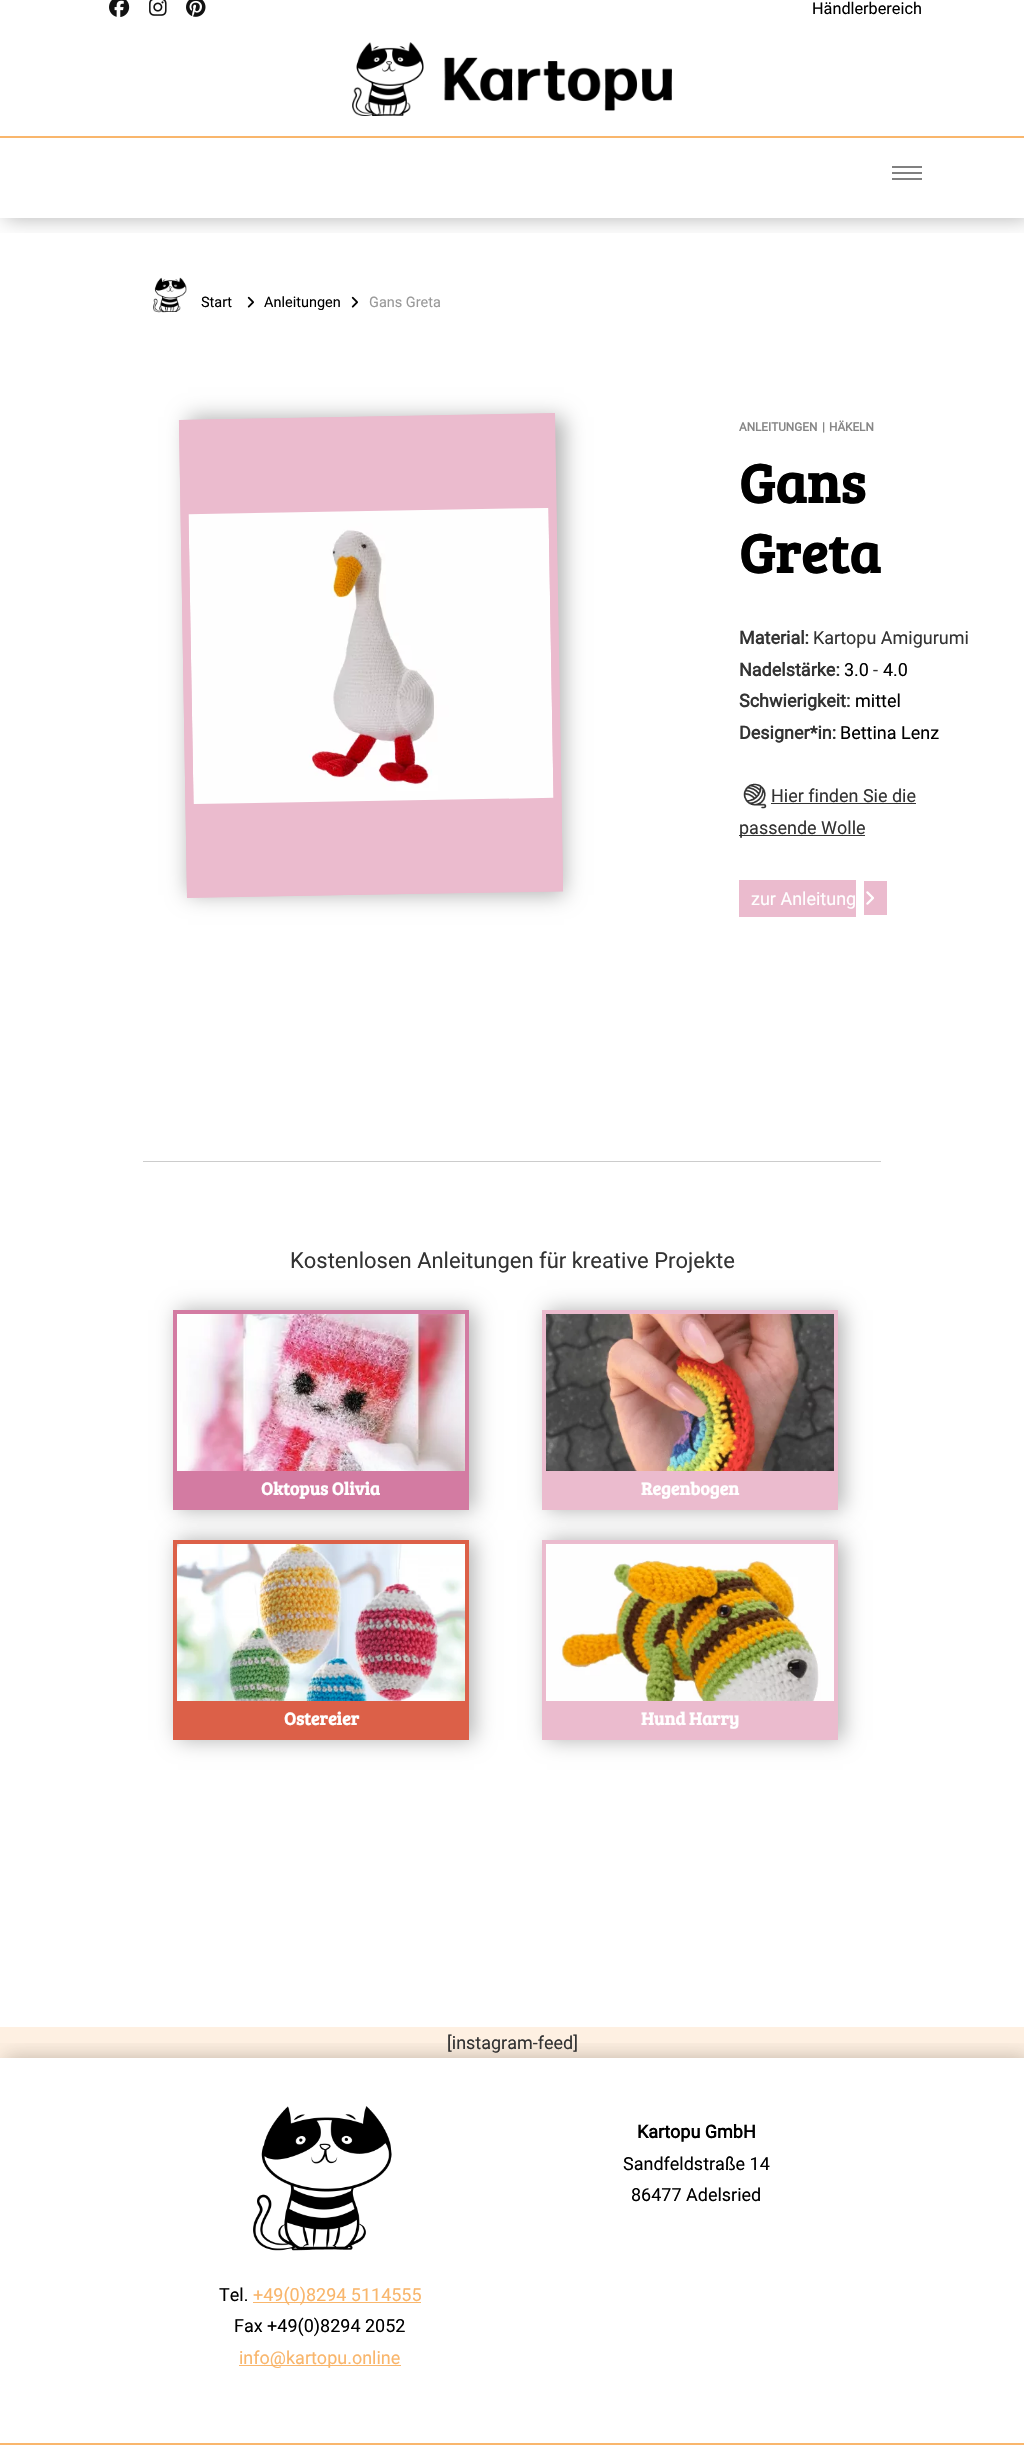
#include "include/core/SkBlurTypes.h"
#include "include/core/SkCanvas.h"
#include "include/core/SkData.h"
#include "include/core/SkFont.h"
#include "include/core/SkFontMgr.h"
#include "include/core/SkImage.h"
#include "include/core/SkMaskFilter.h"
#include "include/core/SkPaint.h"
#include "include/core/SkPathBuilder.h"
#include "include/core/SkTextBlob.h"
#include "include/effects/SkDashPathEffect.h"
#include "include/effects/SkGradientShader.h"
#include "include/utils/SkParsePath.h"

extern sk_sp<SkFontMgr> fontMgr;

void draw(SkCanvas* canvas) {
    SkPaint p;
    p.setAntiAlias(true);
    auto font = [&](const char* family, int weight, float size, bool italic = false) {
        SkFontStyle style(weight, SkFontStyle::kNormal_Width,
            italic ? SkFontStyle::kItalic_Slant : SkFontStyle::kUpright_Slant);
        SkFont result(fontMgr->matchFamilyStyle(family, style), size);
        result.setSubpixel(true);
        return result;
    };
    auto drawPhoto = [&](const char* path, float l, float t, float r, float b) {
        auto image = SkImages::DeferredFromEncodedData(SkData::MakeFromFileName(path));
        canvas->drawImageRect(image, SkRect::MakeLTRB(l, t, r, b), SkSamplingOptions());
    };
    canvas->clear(0xFFFFFFFF);
    canvas->save();
    canvas->clipRect(SkRect::MakeLTRB(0, 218, 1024, 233));
    p.setColor(0x4D000000);
    p.setMaskFilter(SkMaskFilter::MakeBlur(kNormal_SkBlurStyle, 10));
    canvas->drawRect(SkRect::MakeLTRB(5, -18, 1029, 218), p);
    p.setMaskFilter(nullptr);
    canvas->restore();
    drawPhoto("media/1.png", 352, 42, 672, 116);
    {
        const struct { float l, t, r, b; SkColor color; } items[] = {
            {0, 136, 1024, 138, 0xFFF9B66C},
            {892, 166, 922, 168, 0xFF808080},
            {892, 172, 922, 174, 0xFF808080},
            {892, 178, 922, 180, 0xFF808080},
        };
        for (auto [l, t, r, b, color] : items) {
            p.setColor(color);
            canvas->drawRect(SkRect::MakeLTRB(l, t, r, b), p);
        }
    }
    drawPhoto("media/2.png", 109, 0, 130, 17);
    drawPhoto("media/3.png", 149, 0, 167, 16);
    drawPhoto("media/4.png", 186, 0, 206, 17);
    auto font1 = font("Roboto", 400, 16.25f);
    p.setColor(0xFF000000);
    canvas->drawString("Händlerbereich", 812, 14, font1, p);
    drawPhoto("media/5.png", 153, 277, 187, 313);
    auto font2 = font("Roboto", 400, 14.5f);
    canvas->drawString("Start", 201, 307, font2, p);
    drawPhoto("media/6.png", 247, 296, 254, 308);
    canvas->drawString("Anleitungen", 264, 307, font2, p);
    drawPhoto("media/6.png", 351, 296, 358, 308);
    p.setColor(0xFF999999);
    canvas->drawString("Gans Greta", 369, 307, font2, p);
    p.setColor(0x4D000000);
    p.setMaskFilter(SkMaskFilter::MakeBlur(kNormal_SkBlurStyle, 10));
    canvas->drawRect(SkRect::MakeLTRB(188, 417, 564, 895), p);
    p.setMaskFilter(nullptr);
    p.setColor(0xFFEBBBCE);
    canvas->drawPath(SkPathBuilder().moveTo(179, 420).lineTo(555, 413).lineTo(563, 891).lineTo(187, 898).close().detach(), p);
    p.setStyle(SkPaint::kStroke_Style);
    p.setStrokeWidth(8);
    canvas->drawPath(SkPathBuilder().moveTo(183, 424).lineTo(550.5f, 417.5f).lineTo(559, 887.5f).lineTo(191, 893.5f).close().detach(), p);
    drawPhoto("media/7.png", 188, 508, 554, 804);
    auto font3 = font("Roboto", 700, 11.75f);
    p.setStyle(SkPaint::kFill_Style);
    p.setColor(0xFF878787);
    {
        const struct { const char* s; float x, y; } items[] = {
            {"ANLEITUNGEN", 739, 431},
            {"|", 822, 431},
            {"HÄKELN", 829, 431},
        };
        for (auto [s, x, y] : items) {
            canvas->drawString(s, x, y, font3, p);
        }
    }
    auto font4 = font("Bree Serif", 700, 56);
    p.setColor(0xFF000000);
    canvas->drawString("Gans", 739, 503, font4, p);
    canvas->drawString("Greta", 739, 573, font4, p);
    auto font5 = font("Roboto", 700, 18);
    p.setColor(0xFF333333);
    canvas->drawString("Material:", 739, 644, font5, p);
    auto font6 = font("Roboto", 400, 18);
    canvas->drawString("Kartopu Amigurumi", 813, 644, font6, p);
    canvas->drawString("Nadelstärke:", 739, 676, font5, p);
    p.setColor(0xFF000000);
    canvas->drawString("3.0", 844, 676, font6, p);
    p.setColor(0xFF333333);
    canvas->drawString("-", 873, 676, font6, p);
    p.setColor(0xFF000000);
    canvas->drawString("4.0", 883, 676, font6, p);
    p.setColor(0xFF333333);
    canvas->drawString("Schwierigkeit:", 739, 707, font5, p);
    p.setColor(0xFF000000);
    canvas->drawString("mittel", 855, 707, font6, p);
    p.setColor(0xFF333333);
    canvas->drawString("Designer*in:", 739, 739, font5, p);
    p.setColor(0xFF000000);
    canvas->drawString("Bettina Lenz", 840, 739, font6, p);
    drawPhoto("media/8.png", 743, 783, 767, 809);
    p.setColor(0xFF333333);
    canvas->drawString("Hier finden Sie die", 771, 802, font6, p);
    canvas->drawRect(SkRect::MakeLTRB(771, 803, 916, 804), p);
    canvas->drawRect(SkRect::MakeLTRB(739, 835, 865, 836), p);
    canvas->drawString("passende Wolle", 739, 834, font6, p);
    p.setColor(0xFFEBBBCE);
    canvas->drawRect(SkRect::MakeLTRB(739, 880, 856, 917), p);
    canvas->drawRect(SkRect::MakeLTRB(864, 881, 887, 915), p);
    p.setColor(0xFFFFFFFF);
    canvas->drawString("zur Anleitung", 751, 905, font6, p);
    drawPhoto("media/9.png", 866, 891, 874, 905);
    p.setColor(0xFFCCCCCC);
    canvas->drawRect(SkRect::MakeLTRB(143, 1161, 881, 1162), p);
    auto font7 = font("Roboto", 400, 22);
    p.setColor(0xFF333333);
    canvas->drawString("Kostenlosen Anleitungen für kreative Projekte", 290, 1268, font7, p);
    p.setColor(0x4D000000);
    p.setMaskFilter(SkMaskFilter::MakeBlur(kNormal_SkBlurStyle, 10));
    canvas->drawRect(SkRect::MakeLTRB(178, 1310, 474, 1510), p);
    p.setMaskFilter(nullptr);
    p.setColor(0xFFD37BA2);
    canvas->drawRect(SkRect::MakeLTRB(173, 1310, 469, 1510), p);
    drawPhoto("media/10.png", 177, 1314, 465, 1471);
    auto font8 = font("Bree Serif", 700, 18);
    p.setColor(0xFFFFFFFF);
    canvas->drawString("Oktopus Olivia", 261, 1495, font8, p);
    p.setColor(0x4D000000);
    p.setMaskFilter(SkMaskFilter::MakeBlur(kNormal_SkBlurStyle, 10));
    canvas->drawRect(SkRect::MakeLTRB(547, 1310, 843, 1510), p);
    p.setMaskFilter(nullptr);
    p.setColor(0xFFEBBBCE);
    canvas->drawRect(SkRect::MakeLTRB(542, 1310, 838, 1510), p);
    drawPhoto("media/11.png", 546, 1314, 834, 1471);
    p.setColor(0xFFFFFFFF);
    canvas->drawString("Regenbogen", 641, 1495, font8, p);
    p.setColor(0x4D000000);
    p.setMaskFilter(SkMaskFilter::MakeBlur(kNormal_SkBlurStyle, 10));
    canvas->drawRect(SkRect::MakeLTRB(178, 1540, 474, 1740), p);
    p.setMaskFilter(nullptr);
    p.setColor(0xFFDC6048);
    canvas->drawRect(SkRect::MakeLTRB(173, 1540, 469, 1740), p);
    drawPhoto("media/12.png", 177, 1544, 465, 1701);
    p.setColor(0xFFFFFFFF);
    canvas->drawString("Ostereier", 284, 1725, font8, p);
    p.setColor(0x4D000000);
    p.setMaskFilter(SkMaskFilter::MakeBlur(kNormal_SkBlurStyle, 10));
    canvas->drawRect(SkRect::MakeLTRB(547, 1540, 843, 1740), p);
    p.setMaskFilter(nullptr);
    p.setColor(0xFFEBBBCE);
    canvas->drawRect(SkRect::MakeLTRB(542, 1540, 838, 1740), p);
    drawPhoto("media/13.png", 546, 1544, 834, 1701);
    p.setColor(0xFFFFFFFF);
    canvas->drawString("Hund Harry", 641, 1725, font8, p);
    canvas->save();
    canvas->clipRect(SkRect::MakeLTRB(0, 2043, 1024, 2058));
    p.setColor(0x4D000000);
    p.setMaskFilter(SkMaskFilter::MakeBlur(kNormal_SkBlurStyle, 10));
    canvas->drawRect(SkRect::MakeLTRB(5, 2058, 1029, 2445), p);
    p.setMaskFilter(nullptr);
    canvas->restore();
    p.setColor(0x33F9B66C);
    canvas->drawRect(SkRect::MakeLTRB(0, 2027, 1024, 2058), p);
    p.setColor(0xFF333333);
    canvas->drawString("[instagram-feed]", 447, 2049, font6, p);
    p.setColor(0xFFF9B66C);
    canvas->drawRect(SkRect::MakeLTRB(0, 2443, 1024, 2445), p);
    drawPhoto("media/14.png", 253, 2106, 392, 2251);
    p.setColor(0xFF000000);
    canvas->drawString("Kartopu GmbH", 637, 2138, font5, p);
    {
        const struct { const char* s; float x, y; } items[] = {
            {"Sandfeldstraße 14", 623, 2170},
            {"86477 Adelsried", 631, 2201},
            {"Tel.", 219, 2301},
        };
        for (auto [s, x, y] : items) {
            canvas->drawString(s, x, y, font6, p);
        }
    }
    p.setColor(0xFFF9B66C);
    canvas->drawRect(SkRect::MakeLTRB(253, 2302, 421, 2303), p);
    canvas->drawString("+49(0)8294 5114555", 253, 2301, font6, p);
    p.setColor(0xFF000000);
    canvas->drawString("Fax +49(0)8294 2052", 234, 2332, font6, p);
    p.setColor(0xFFF9B66C);
    canvas->drawRect(SkRect::MakeLTRB(239, 2365, 401, 2366), p);
    canvas->drawString("info@kartopu.online", 239, 2364, font6, p);
    p.setColor(0xFFFFFFFF);
    canvas->drawRect(SkRect::MakeLTRB(0, 2445, 1024, 2462), p);
}
